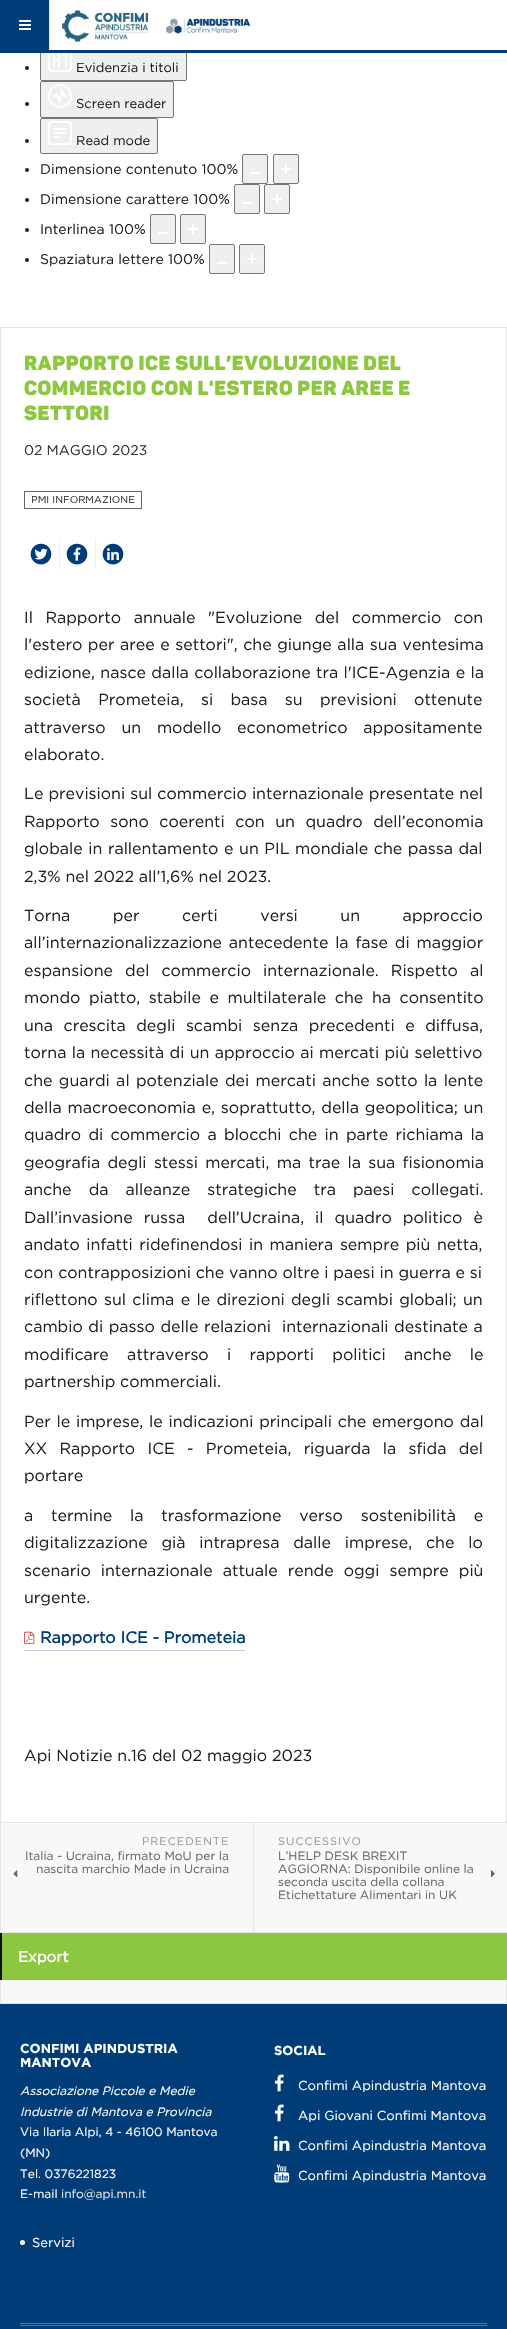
#include "include/core/SkBlurTypes.h"
#include "include/core/SkCanvas.h"
#include "include/core/SkData.h"
#include "include/core/SkFont.h"
#include "include/core/SkFontMgr.h"
#include "include/core/SkImage.h"
#include "include/core/SkMaskFilter.h"
#include "include/core/SkPaint.h"
#include "include/core/SkPathBuilder.h"
#include "include/core/SkTextBlob.h"
#include "include/effects/SkDashPathEffect.h"
#include "include/effects/SkGradientShader.h"
#include "include/utils/SkParsePath.h"

extern sk_sp<SkFontMgr> fontMgr;

void draw(SkCanvas* canvas) {
    SkPaint p;
    p.setAntiAlias(true);
    auto font = [&](const char* family, int weight, float size, bool italic = false) {
        SkFontStyle style(weight, SkFontStyle::kNormal_Width,
            italic ? SkFontStyle::kItalic_Slant : SkFontStyle::kUpright_Slant);
        SkFont result(fontMgr->matchFamilyStyle(family, style), size);
        result.setSubpixel(true);
        return result;
    };
    auto drawTracked = [&](const char* s, float x, float y, const SkFont& font, const SkPaint& ink, float letter, float word) {
        std::vector<SkGlyphID> glyphs(font.countText(s, strlen(s), SkTextEncoding::kUTF8));
        std::vector<float> xs(glyphs.size());
        font.textToGlyphs(s, strlen(s), SkTextEncoding::kUTF8, glyphs);
        font.getXPos(glyphs, xs, x);
        float extra = 0;
        for (size_t i = 0; i < glyphs.size(); i++) {
            xs[i] += extra;
            extra += letter + word * (glyphs[i] == font.unicharToGlyph(' '));
        }
        canvas->drawTextBlob(SkTextBlob::MakeFromPosHGlyphs(glyphs, xs, y, font), 0, 0, ink);
    };
    auto drawPhoto = [&](const char* path, float l, float t, float r, float b) {
        auto image = SkImages::DeferredFromEncodedData(SkData::MakeFromFileName(path));
        canvas->drawImageRect(image, SkRect::MakeLTRB(l, t, r, b), SkSamplingOptions());
    };
    canvas->clear(0xFFFFFFFF);
    p.setColor(0xFF221F20);
    canvas->drawCircle(27, 68, 2, p);
    p.setColor(0xFFEFEFEF);
    canvas->drawRoundRect(SkRect::MakeLTRB(40.5f, 45.5f, 186.5f, 80.5f), 1.5f, 1.5f, p);
    p.setStyle(SkPaint::kStroke_Style);
    p.setStrokeWidth(1);
    p.setColor(0xFF767676);
    canvas->drawRoundRect(SkRect::MakeLTRB(40.5f, 45.5f, 186.5f, 80.5f), 1.5f, 1.5f, p);
    drawPhoto("media/1.png", 48, 53, 72, 72);
    auto font1 = font("Gotham", 400, 13);
    p.setStyle(SkPaint::kFill_Style);
    p.setColor(0xFF221F20);
    canvas->drawString("Evidenzia i titoli", 76, 72, font1, p);
    canvas->drawCircle(27, 104, 2, p);
    p.setColor(0xFFEFEFEF);
    canvas->drawRoundRect(SkRect::MakeLTRB(40.5f, 81.5f, 173.5f, 117.5f), 1.5f, 1.5f, p);
    p.setStyle(SkPaint::kStroke_Style);
    p.setColor(0xFF767676);
    canvas->drawRoundRect(SkRect::MakeLTRB(40.5f, 81.5f, 173.5f, 117.5f), 1.5f, 1.5f, p);
    drawPhoto("media/2.png", 48, 84, 72, 108);
    p.setStyle(SkPaint::kFill_Style);
    p.setColor(0xFF221F20);
    canvas->drawString("Screen reader", 76, 108, font1, p);
    canvas->drawCircle(27, 141, 2, p);
    p.setColor(0xFFEFEFEF);
    canvas->drawRoundRect(SkRect::MakeLTRB(40.5f, 118.5f, 157.5f, 153.5f), 1.5f, 1.5f, p);
    p.setStyle(SkPaint::kStroke_Style);
    p.setColor(0xFF767676);
    canvas->drawRoundRect(SkRect::MakeLTRB(40.5f, 118.5f, 157.5f, 153.5f), 1.5f, 1.5f, p);
    p.setStrokeWidth(2);
    p.setColor(0xFFFFFFFF);
    canvas->drawRoundRect(SkRect::MakeLTRB(49, 122, 71, 144), 3, 3, p);
    p.setStyle(SkPaint::kFill_Style);
    canvas->drawRoundRect(SkRect::MakeLTRB(53, 128, 67, 130), 1, 1, p);
    canvas->drawRoundRect(SkRect::MakeLTRB(53, 132, 67, 134), 1, 1, p);
    canvas->drawRoundRect(SkRect::MakeLTRB(53, 136, 60, 138), 1, 1, p);
    p.setColor(0xFF221F20);
    canvas->drawString("Read mode", 76, 145, font1, p);
    canvas->drawCircle(27, 170, 2, p);
    p.setColor(0xFFEFEFEF);
    canvas->drawRoundRect(SkRect::MakeLTRB(242.5f, 154.5f, 267.5f, 183.5f), 1.5f, 1.5f, p);
    p.setStyle(SkPaint::kStroke_Style);
    p.setStrokeWidth(1);
    p.setColor(0xFF767676);
    canvas->drawRoundRect(SkRect::MakeLTRB(242.5f, 154.5f, 267.5f, 183.5f), 1.5f, 1.5f, p);
    p.setStyle(SkPaint::kFill_Style);
    p.setColor(0xFFEFEFEF);
    canvas->drawRoundRect(SkRect::MakeLTRB(273.5f, 154.5f, 298.5f, 183.5f), 1.5f, 1.5f, p);
    p.setStyle(SkPaint::kStroke_Style);
    p.setColor(0xFF767676);
    canvas->drawRoundRect(SkRect::MakeLTRB(273.5f, 154.5f, 298.5f, 183.5f), 1.5f, 1.5f, p);
    p.setStyle(SkPaint::kFill_Style);
    p.setColor(0xFFEFEFEF);
    canvas->drawRoundRect(SkRect::MakeLTRB(234.5f, 184.5f, 259.5f, 213.5f), 1.5f, 1.5f, p);
    p.setStyle(SkPaint::kStroke_Style);
    p.setColor(0xFF767676);
    canvas->drawRoundRect(SkRect::MakeLTRB(234.5f, 184.5f, 259.5f, 213.5f), 1.5f, 1.5f, p);
    p.setStyle(SkPaint::kFill_Style);
    p.setColor(0xFFEFEFEF);
    canvas->drawRoundRect(SkRect::MakeLTRB(264.5f, 184.5f, 289.5f, 213.5f), 1.5f, 1.5f, p);
    p.setStyle(SkPaint::kStroke_Style);
    p.setColor(0xFF767676);
    canvas->drawRoundRect(SkRect::MakeLTRB(264.5f, 184.5f, 289.5f, 213.5f), 1.5f, 1.5f, p);
    p.setStrokeWidth(2);
    p.setStrokeCap(SkPaint::kRound_Cap);
    p.setColor(0xFFFFFFFF);
    canvas->drawPath(SkPathBuilder().moveTo(259, 173).lineTo(251, 173).moveTo(286, 165).lineTo(286, 173).moveTo(290, 169).lineTo(282, 169).moveTo(251, 203).lineTo(243, 203).moveTo(277, 195).lineTo(277, 203).moveTo(281, 199).lineTo(273, 199).detach(), p);
    auto font2 = font("Gotham", 400, 14);
    p.setStyle(SkPaint::kFill_Style);
    p.setColor(0xFF221F20);
    canvas->drawString("Dimensione contenuto 100%", 40, 174, font2, p);
    canvas->drawCircle(27, 200, 2, p);
    canvas->drawString("Dimensione carattere 100%", 40, 204, font2, p);
    canvas->drawCircle(27, 230, 2, p);
    p.setColor(0xFFEFEFEF);
    canvas->drawRoundRect(SkRect::MakeLTRB(150.5f, 214.5f, 175.5f, 243.5f), 1.5f, 1.5f, p);
    p.setStyle(SkPaint::kStroke_Style);
    p.setStrokeWidth(1);
    p.setStrokeCap(SkPaint::kButt_Cap);
    p.setColor(0xFF767676);
    canvas->drawRoundRect(SkRect::MakeLTRB(150.5f, 214.5f, 175.5f, 243.5f), 1.5f, 1.5f, p);
    p.setStyle(SkPaint::kFill_Style);
    p.setColor(0xFFEFEFEF);
    canvas->drawRoundRect(SkRect::MakeLTRB(180.5f, 214.5f, 205.5f, 243.5f), 1.5f, 1.5f, p);
    p.setStyle(SkPaint::kStroke_Style);
    p.setColor(0xFF767676);
    canvas->drawRoundRect(SkRect::MakeLTRB(180.5f, 214.5f, 205.5f, 243.5f), 1.5f, 1.5f, p);
    p.setStrokeWidth(2);
    p.setStrokeCap(SkPaint::kRound_Cap);
    p.setColor(0xFFFFFFFF);
    canvas->drawPath(SkPathBuilder().moveTo(167, 233).lineTo(159, 233).moveTo(193, 225).lineTo(193, 233).moveTo(197, 229).lineTo(189, 229).detach(), p);
    p.setStyle(SkPaint::kFill_Style);
    p.setColor(0xFF221F20);
    canvas->drawString("Interlinea 100%", 40, 234, font2, p);
    canvas->drawCircle(27, 260, 2, p);
    p.setColor(0xFFEFEFEF);
    canvas->drawRoundRect(SkRect::MakeLTRB(209.5f, 244.5f, 234.5f, 273.5f), 1.5f, 1.5f, p);
    p.setStyle(SkPaint::kStroke_Style);
    p.setStrokeWidth(1);
    p.setStrokeCap(SkPaint::kButt_Cap);
    p.setColor(0xFF767676);
    canvas->drawRoundRect(SkRect::MakeLTRB(209.5f, 244.5f, 234.5f, 273.5f), 1.5f, 1.5f, p);
    p.setStyle(SkPaint::kFill_Style);
    p.setColor(0xFFEFEFEF);
    canvas->drawRoundRect(SkRect::MakeLTRB(239.5f, 244.5f, 264.5f, 273.5f), 1.5f, 1.5f, p);
    p.setStyle(SkPaint::kStroke_Style);
    p.setColor(0xFF767676);
    canvas->drawRoundRect(SkRect::MakeLTRB(239.5f, 244.5f, 264.5f, 273.5f), 1.5f, 1.5f, p);
    p.setStrokeWidth(2);
    p.setStrokeCap(SkPaint::kRound_Cap);
    p.setColor(0xFFFFFFFF);
    canvas->drawPath(SkPathBuilder().moveTo(226, 263).lineTo(218, 263).moveTo(252, 255).lineTo(252, 263).moveTo(256, 259).lineTo(248, 259).detach(), p);
    p.setStyle(SkPaint::kFill_Style);
    p.setColor(0xFF221F20);
    canvas->drawString("Spaziatura lettere 100%", 40, 264, font2, p);
    {
        const struct { float l, t, r, b; SkColor color; } items[] = {
            {50, 45, 187, 50, 0xFFFFFFFF},
            {0, 50, 507, 53, 0xFF003D78},
            {0, 0, 49, 50, 0xFF003D78},
            {49, 0, 50, 50, 0xFFE5E5E5},
        };
        for (auto [l, t, r, b, color] : items) {
            p.setColor(color);
            canvas->drawRect(SkRect::MakeLTRB(l, t, r, b), p);
        }
    }
    drawPhoto("media/3.png", 19, 20, 31, 30);
    drawPhoto("media/4.png", 62, 10, 251, 42);
    p.setStyle(SkPaint::kStroke_Style);
    p.setStrokeWidth(1);
    p.setStrokeCap(SkPaint::kButt_Cap);
    canvas->drawRect(SkRect::MakeLTRB(0.5f, 327.5f, 506.5f, 2003.5f), p);
    auto font3 = font("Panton", 900, 20);
    p.setStyle(SkPaint::kFill_Style);
    p.setColor(0xFF8CC73F);
    {
        const struct { const char* s; float x, y; } items[] = {
            {"Rapporto ICE sull’Evoluzione del", 24, 370},
            {"commercio con l'estero per aree e", 24, 395},
            {"settori", 24, 420},
        };
        for (auto [s, x, y] : items) {
            drawTracked(s, x, y, font3, p, 0.6f, 0);
        }
    }
    p.setColor(0xFF333333);
    canvas->drawString("02 MAGGIO 2023", 24, 455, font2, p);
    p.setStyle(SkPaint::kStroke_Style);
    p.setColor(0xFF666666);
    canvas->drawRect(SkRect::MakeLTRB(24.5f, 491.5f, 141.5f, 508.5f), p);
    auto font4 = font("Gotham", 400, 10);
    p.setStyle(SkPaint::kFill_Style);
    p.setColor(0xFF333333);
    canvas->drawString("PMI INFORMAZIONE", 31, 503, font4, p);
    drawPhoto("media/5.png", 30, 543, 52, 565);
    p.setColor(0xFFF0F0F0);
    canvas->drawPath(SkPathBuilder().moveTo(59, 570).lineTo(59, 538).lineTo(60, 539).lineTo(60, 569).close().detach(), p);
    drawPhoto("media/6.png", 66, 543, 88, 565);
    canvas->drawPath(SkPathBuilder().moveTo(95, 538).lineTo(95, 570).lineTo(96, 569).lineTo(96, 539).close().detach(), p);
    drawPhoto("media/7.png", 102, 543, 124, 565);
    auto font5 = font("Gotham", 400, 16);
    p.setColor(0xFF221F20);
    drawTracked("Il Rapporto annuale \"Evoluzione del commercio con", 24, 623, font5, p, 0, 7.75f);
    drawTracked("l'estero per aree e settori\", che giunge alla sua ventesima", 24, 650, font5, p, 0, 0.75f);
    drawTracked("edizione, nasce dalla collaborazione tra l'ICE-Agenzia e la", 24, 678, font5, p, 0, 0.5f);
    drawTracked("società Prometeia, si basa su previsioni ottenute", 24, 705, font5, p, 0, 12.5f);
    drawTracked("attraverso un modello econometrico appositamente", 24, 733, font5, p, 0, 11);
    canvas->drawString("elaborato.", 24, 760, font5, p);
    drawTracked("Le previsioni sul commercio internazionale presentate nel", 24, 799, font5, p, 0, 0.25f);
    drawTracked("Rapporto sono coerenti con un quadro dell’economia", 24, 827, font5, p, 0, 5.75f);
    drawTracked("globale in rallentamento e un PIL mondiale che passa dal", 24, 854, font5, p, 0, 0.75f);
    canvas->drawString("2,3% nel 2022 all’1,6% nel 2023.", 24, 882, font5, p);
    drawTracked("Torna per certi versi un approccio", 24, 921, font5, p, 0, 37.75f);
    drawTracked("all’internazionalizzazione antecedente la fase di maggior", 24, 948, font5, p, 0, 2);
    drawTracked("espansione del commercio internazionale. Rispetto al", 24, 976, font5, p, 0, 7.25f);
    drawTracked("mondo piatto, stabile e multilaterale che ha consentito", 24, 1003, font5, p, 0, 3.75f);
    drawTracked("una crescita degli scambi senza precedenti e diffusa,", 24, 1031, font5, p, 0, 5.75f);
    drawTracked("torna la necessità di un approccio ai mercati più selettivo", 24, 1058, font5, p, 0, 0.5f);
    drawTracked("che guardi al potenziale dei mercati anche sotto la lente", 24, 1086, font5, p, 0, 1.5f);
    drawTracked("della macroeconomia e, soprattutto, della geopolitica; un", 24, 1113, font5, p, 0, 1);
    drawTracked("quadro di commercio a blocchi che in parte richiama la", 24, 1140, font5, p, 0, 2.5f);
    drawTracked("geografia degli stessi mercati, ma trae la sua fisionomia", 24, 1168, font5, p, 0, 2.5f);
    drawTracked("anche da alleanze strategiche tra paesi collegati.", 24, 1195, font5, p, 0, 12.25f);
    drawTracked("Dall’invasione russa  dell’Ucraina, il quadro politico è", 24, 1223, font5, p, 0, 6.25f);
    drawTracked("andato infatti ridefinendosi in maniera sempre più netta,", 24, 1250, font5, p, 0, 1.75f);
    canvas->drawString("con contrapposizioni che vanno oltre i paesi in guerra e si", 24, 1278, font5, p);
    drawTracked("riflettono sul clima e le direzioni degli scambi globali; un", 24, 1305, font5, p, 0, 1.5f);
    drawTracked("cambio di passo delle relazioni  internazionali destinate a", 24, 1332, font5, p, 0, 0.75f);
    drawTracked("modificare attraverso i rapporti politici anche le", 24, 1360, font5, p, 0, 13.5f);
    canvas->drawString("partnership commerciali.", 24, 1387, font5, p);
    drawTracked("Per le imprese, le indicazioni principali che emergono dal", 24, 1427, font5, p, 0, 1);
    drawTracked("XX Rapporto ICE - Prometeia, riguarda la sfida del", 24, 1454, font5, p, 0, 7.5f);
    canvas->drawString("portare", 24, 1481, font5, p);
    drawTracked("a termine la trasformazione verso sostenibilità e", 24, 1521, font5, p, 0, 13);
    drawTracked("digitalizzazione già intrapresa dalle imprese, che lo", 24, 1548, font5, p, 0, 9);
    drawTracked("scenario internazionale attuale rende oggi sempre più", 24, 1576, font5, p, 0, 5.25f);
    canvas->drawString("urgente.", 24, 1603, font5, p);
    p.setColor(0xFFBECCD9);
    canvas->drawRect(SkRect::MakeLTRB(24, 1650, 245, 1651), p);
    drawPhoto("media/8.png", 24, 1631, 35, 1644);
    auto font6 = font("Gotham", 700, 16);
    p.setColor(0xFF003D78);
    canvas->drawString("Rapporto ICE - Prometeia", 40, 1643, font6, p);
    p.setColor(0xFF221F20);
    canvas->drawString("Api Notizie n.16 del 02 maggio 2023", 24, 1761, font5, p);
    {
        const struct { float l, t, r, b; SkColor color; } items[] = {
            {0, 1822, 507, 1823, 0xFFE5E5E5},
            {0, 1932, 507, 1933, 0xFFE5E5E5},
            {253, 1823, 254, 1932, 0xFFE5E5E5},
            {1, 1823, 253, 1932, 0xFFF8F8F8},
        };
        for (auto [l, t, r, b, color] : items) {
            p.setColor(color);
            canvas->drawRect(SkRect::MakeLTRB(l, t, r, b), p);
        }
    }
    auto font7 = font("Gotham", 400, 11);
    p.setColor(0xFF999999);
    drawTracked("PRECEDENTE", 142, 1845, font7, p, 1, 0);
    auto font8 = font("Gotham", 400, 12);
    p.setColor(0xFF666666);
    canvas->drawString("Italia - Ucraina, firmato MoU per la", 25, 1860, font8, p);
    drawPhoto("media/9.png", 13, 1870, 18, 1878);
    canvas->drawString("nascita marchio Made in Ucraina", 36, 1873, font8, p);
    p.setColor(0xFFF8F8F8);
    canvas->drawRect(SkRect::MakeLTRB(254, 1823, 507, 1932), p);
    p.setColor(0xFF999999);
    drawTracked("SUCCESSIVO", 278, 1845, font7, p, 1, 0);
    p.setColor(0xFF666666);
    canvas->drawString("L’HELP DESK BREXIT", 278, 1860, font8, p);
    canvas->drawString("AGGIORNA: Disponibile online la", 278, 1873, font8, p);
    drawPhoto("media/10.png", 491, 1870, 495, 1878);
    canvas->drawString("seconda uscita della collana", 278, 1886, font8, p);
    canvas->drawString("Etichettature Alimentari in UK", 278, 1899, font8, p);
    p.setColor(0xFFF8F8F8);
    canvas->drawRect(SkRect::MakeLTRB(1, 1980, 506, 2003), p);
    p.setStyle(SkPaint::kStroke_Style);
    p.setColor(0xFFE5E5E5);
    canvas->drawRect(SkRect::MakeLTRB(0.5f, 1933.5f, 506.5f, 2003.5f), p);
    p.setStyle(SkPaint::kFill_Style);
    p.setColor(0xFF111111);
    canvas->drawRect(SkRect::MakeLTRB(0, 1933, 2, 1980), p);
    p.setColor(0xFF8CC73F);
    canvas->drawRect(SkRect::MakeLTRB(2, 1933, 507, 1980), p);
    auto font9 = font("Gotham", 700, 15);
    p.setColor(0xFFFFFFFF);
    canvas->drawString("Export", 18, 1962, font9, p);
    p.setColor(0xFF003D78);
    canvas->drawRect(SkRect::MakeLTRB(0, 2004, 507, 2329), p);
    auto font10 = font("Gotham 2", 700, 13);
    p.setColor(0xFFFFFFFF);
    canvas->drawString("CONFIMI APINDUSTRIA", 20, 2053, font10, p);
    canvas->drawString("MANTOVA", 20, 2067, font10, p);
    auto font11 = font("Gotham", 400, 12, true);
    canvas->drawString("Associazione Piccole e Medie", 20, 2095, font11, p);
    canvas->drawString("Industrie di Mantova e Provincia", 20, 2116, font11, p);
    {
        const struct { const char* s; float x, y; } items[] = {
            {"Via Ilaria Alpi, 4 - 46100 Mantova", 20, 2136},
            {"(MN)", 20, 2157},
            {"Tel. 0376221823", 20, 2178},
            {"E-mail", 20, 2198},
        };
        for (auto [s, x, y] : items) {
            canvas->drawString(s, x, y, font8, p);
        }
    }
    p.setColor(0xFFE5E5E5);
    canvas->drawString("info@api.mn.it", 61, 2198, font8, p);
    p.setColor(0xFFFFFFFF);
    canvas->drawCircle(22.5f, 2242.5f, 2.5f, p);
    canvas->drawString("Servizi", 32, 2247, font1, p);
    canvas->drawString("SOCIAL", 274, 2055, font10, p);
    drawPhoto("media/11.png", 274, 2074, 284, 2092);
    canvas->drawString("Confimi Apindustria Mantova", 298, 2090, font1, p);
    drawPhoto("media/11.png", 274, 2104, 284, 2122);
    canvas->drawString("Api Giovani Confimi Mantova", 298, 2120, font1, p);
    drawPhoto("media/12.png", 274, 2136, 290, 2151);
    canvas->drawString("Confimi Apindustria Mantova", 298, 2150, font1, p);
    drawPhoto("media/13.png", 274, 2164, 290, 2183);
    canvas->drawString("Confimi Apindustria Mantova", 298, 2180, font1, p);
    p.setColor(0xFF4D77A1);
    canvas->drawRect(SkRect::MakeLTRB(20, 2323, 487, 2324), p);
    canvas->drawRect(SkRect::MakeLTRB(20, 2325, 487, 2326), p);
}
